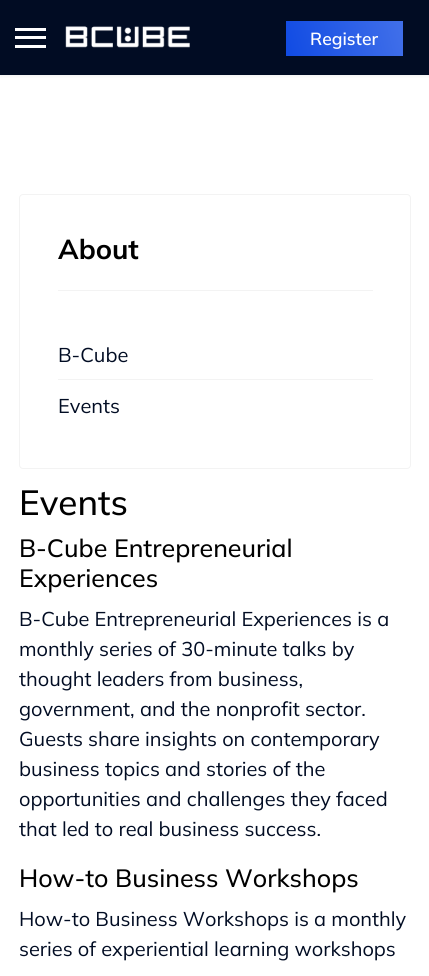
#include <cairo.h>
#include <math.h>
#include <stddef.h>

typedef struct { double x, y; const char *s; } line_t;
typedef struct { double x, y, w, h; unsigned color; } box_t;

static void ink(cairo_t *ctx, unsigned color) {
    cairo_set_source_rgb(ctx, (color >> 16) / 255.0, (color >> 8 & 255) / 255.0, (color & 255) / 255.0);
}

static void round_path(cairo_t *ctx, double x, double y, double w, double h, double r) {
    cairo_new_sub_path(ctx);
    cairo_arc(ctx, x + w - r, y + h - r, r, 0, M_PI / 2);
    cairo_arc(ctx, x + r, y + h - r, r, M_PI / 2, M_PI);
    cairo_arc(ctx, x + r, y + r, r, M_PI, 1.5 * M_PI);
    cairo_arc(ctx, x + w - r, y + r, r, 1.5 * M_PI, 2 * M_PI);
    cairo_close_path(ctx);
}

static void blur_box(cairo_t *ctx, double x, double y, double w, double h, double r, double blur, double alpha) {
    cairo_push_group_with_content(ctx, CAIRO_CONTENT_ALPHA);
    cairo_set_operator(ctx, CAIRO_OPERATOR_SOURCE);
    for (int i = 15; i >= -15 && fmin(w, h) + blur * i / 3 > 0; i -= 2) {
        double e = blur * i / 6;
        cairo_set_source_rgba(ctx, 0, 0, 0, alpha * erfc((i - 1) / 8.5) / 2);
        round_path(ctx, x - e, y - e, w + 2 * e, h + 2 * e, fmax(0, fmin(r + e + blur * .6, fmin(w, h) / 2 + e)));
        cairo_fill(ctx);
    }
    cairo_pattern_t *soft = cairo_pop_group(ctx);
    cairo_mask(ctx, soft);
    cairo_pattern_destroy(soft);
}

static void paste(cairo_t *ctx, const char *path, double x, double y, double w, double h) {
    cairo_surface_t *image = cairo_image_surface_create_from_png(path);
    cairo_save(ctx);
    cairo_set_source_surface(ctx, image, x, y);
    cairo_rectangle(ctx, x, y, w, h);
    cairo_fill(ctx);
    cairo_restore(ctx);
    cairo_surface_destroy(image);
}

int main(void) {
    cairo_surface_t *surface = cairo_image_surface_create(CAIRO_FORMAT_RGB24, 429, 976);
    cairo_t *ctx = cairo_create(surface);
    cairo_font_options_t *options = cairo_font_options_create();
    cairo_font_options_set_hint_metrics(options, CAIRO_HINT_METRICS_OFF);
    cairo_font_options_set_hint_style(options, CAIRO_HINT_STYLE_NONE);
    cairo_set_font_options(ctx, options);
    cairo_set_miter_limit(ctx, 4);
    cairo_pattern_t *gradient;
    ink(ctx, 0xFFFFFF);
    cairo_paint(ctx);
    ink(ctx, 0x000000);
    blur_box(ctx, 0, 0, 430, 75, 0, 2.5, 0.1);
    {
        static const box_t items[] = {
            {0, 0, 429, 75, 0x010C23},
            {15, 28, 31, 3, 0xFFFFFF},
            {15, 36, 31, 3, 0xFFFFFF},
            {15, 45, 31, 3, 0xFFFFFF},
        };
        for (size_t i = 0; i < sizeof items / sizeof *items; i++) {
            ink(ctx, items[i].color);
            cairo_rectangle(ctx, items[i].x, items[i].y, items[i].w, items[i].h);
            cairo_fill(ctx);
        }
    }
    paste(ctx, "media/1.png", 65, 26, 125, 22);
    gradient = cairo_pattern_create_linear(403, 24, 282, 55);
    cairo_pattern_add_color_stop_rgba(gradient, 0.04, 0.247, 0.431, 0.914, 1);
    cairo_pattern_add_color_stop_rgba(gradient, 1, 0.059, 0.29, 0.89, 1);
    cairo_set_source(ctx, gradient);
    cairo_pattern_destroy(gradient);
    cairo_rectangle(ctx, 286, 21, 117, 35);
    cairo_fill(ctx);
    cairo_select_font_face(ctx, "Mulish SemiBold", CAIRO_FONT_SLANT_NORMAL, CAIRO_FONT_WEIGHT_NORMAL);
    cairo_set_font_size(ctx, 17.5);
    ink(ctx, 0xFFFFFF);
    cairo_move_to(ctx, 310, 45);
    cairo_show_text(ctx, "Register");
    round_path(ctx, 19.5, 194.5, 391, 274, 3.5);
    ink(ctx, 0xF3F3F3);
    cairo_set_line_width(ctx, 1);
    cairo_stroke(ctx);
    cairo_rectangle(ctx, 58, 290, 315, 1);
    cairo_fill(ctx);
    cairo_select_font_face(ctx, "Mulish", CAIRO_FONT_SLANT_NORMAL, CAIRO_FONT_WEIGHT_BOLD);
    cairo_set_font_size(ctx, 27.5);
    ink(ctx, 0x000000);
    cairo_move_to(ctx, 58, 259);
    cairo_show_text(ctx, "About");
    ink(ctx, 0xF3F3F3);
    cairo_rectangle(ctx, 58, 379, 315, 1);
    cairo_fill(ctx);
    cairo_select_font_face(ctx, "Mulish", CAIRO_FONT_SLANT_NORMAL, CAIRO_FONT_WEIGHT_NORMAL);
    cairo_set_font_size(ctx, 20);
    ink(ctx, 0x010C23);
    cairo_move_to(ctx, 58, 362);
    cairo_show_text(ctx, "B-Cube");
    cairo_move_to(ctx, 58, 413);
    cairo_show_text(ctx, "Events");
    cairo_select_font_face(ctx, "Mulish Medium", CAIRO_FONT_SLANT_NORMAL, CAIRO_FONT_WEIGHT_NORMAL);
    cairo_set_font_size(ctx, 35);
    ink(ctx, 0x000000);
    cairo_move_to(ctx, 19, 515);
    cairo_show_text(ctx, "Events");
    cairo_set_font_size(ctx, 25);
    cairo_move_to(ctx, 19, 557);
    cairo_show_text(ctx, "B-Cube Entrepreneurial");
    cairo_move_to(ctx, 19, 587);
    cairo_show_text(ctx, "Experiences");
    cairo_select_font_face(ctx, "Mulish", CAIRO_FONT_SLANT_NORMAL, CAIRO_FONT_WEIGHT_NORMAL);
    cairo_set_font_size(ctx, 20);
    ink(ctx, 0x010C23);
    {
        static const line_t items[] = {
            {19, 626, "B-Cube Entrepreneurial Experiences is a"},
            {19, 656, "monthly series of 30-minute talks by"},
            {19, 686, "thought leaders from business,"},
            {19, 716, "government, and the nonprofit sector."},
            {19, 746, "Guests share insights on contemporary"},
            {19, 776, "business topics and stories of the"},
            {19, 806, "opportunities and challenges they faced"},
            {19, 836, "that led to real business success."},
        };
        for (size_t i = 0; i < sizeof items / sizeof *items; i++) {
            cairo_move_to(ctx, items[i].x, items[i].y);
            cairo_show_text(ctx, items[i].s);
        }
    }
    cairo_select_font_face(ctx, "Mulish Medium", CAIRO_FONT_SLANT_NORMAL, CAIRO_FONT_WEIGHT_NORMAL);
    cairo_set_font_size(ctx, 25);
    ink(ctx, 0x000000);
    cairo_move_to(ctx, 19, 887);
    cairo_show_text(ctx, "How-to Business Workshops");
    cairo_select_font_face(ctx, "Mulish", CAIRO_FONT_SLANT_NORMAL, CAIRO_FONT_WEIGHT_NORMAL);
    cairo_set_font_size(ctx, 20);
    ink(ctx, 0x010C23);
    cairo_move_to(ctx, 19, 926);
    cairo_show_text(ctx, "How-to Business Workshops is a monthly");
    cairo_move_to(ctx, 19, 956);
    cairo_show_text(ctx, "series of experiential learning workshops");
    cairo_surface_write_to_png(surface, "image.png");
    cairo_font_options_destroy(options);
    cairo_destroy(ctx);
    cairo_surface_destroy(surface);
    return 0;
}
